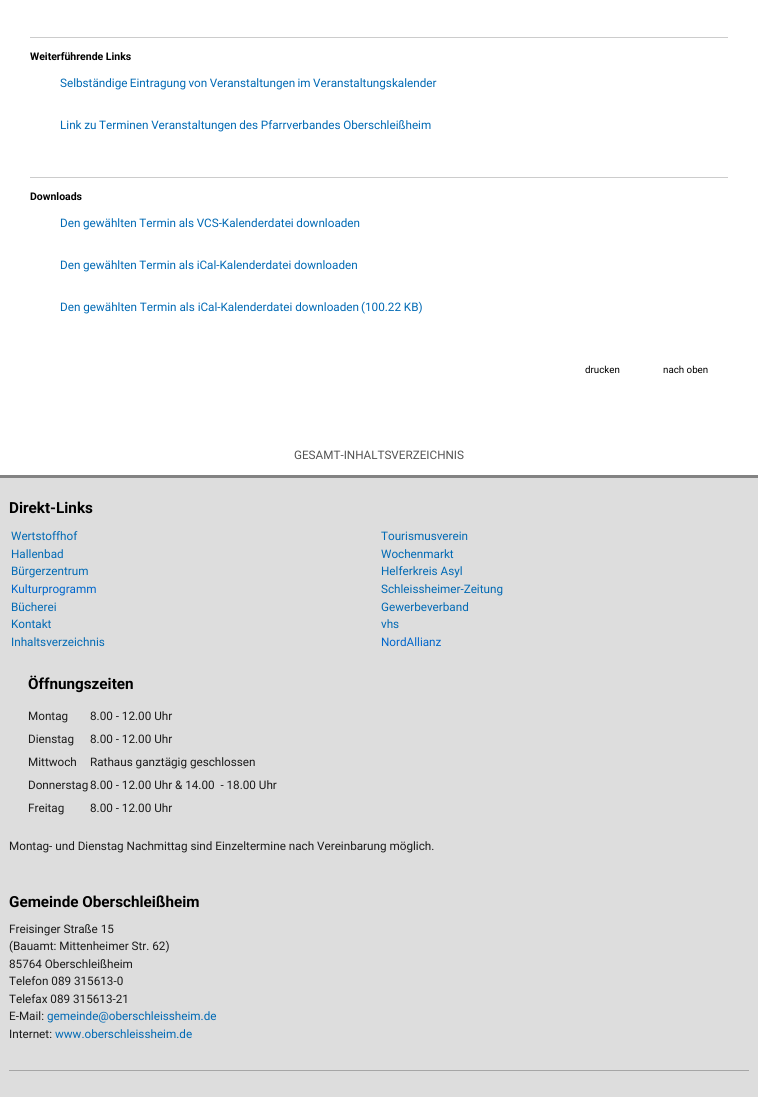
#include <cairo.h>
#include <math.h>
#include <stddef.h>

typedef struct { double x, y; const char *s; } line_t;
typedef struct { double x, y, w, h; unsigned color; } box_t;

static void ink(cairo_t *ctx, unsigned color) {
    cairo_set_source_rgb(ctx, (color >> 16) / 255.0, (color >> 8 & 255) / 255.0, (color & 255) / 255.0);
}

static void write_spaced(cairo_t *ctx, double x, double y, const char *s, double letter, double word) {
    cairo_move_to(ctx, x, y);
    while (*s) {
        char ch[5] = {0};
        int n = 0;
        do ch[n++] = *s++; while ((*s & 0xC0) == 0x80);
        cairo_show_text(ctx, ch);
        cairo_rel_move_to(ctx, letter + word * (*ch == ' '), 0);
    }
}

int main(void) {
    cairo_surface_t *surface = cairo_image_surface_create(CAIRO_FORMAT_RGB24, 758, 1097);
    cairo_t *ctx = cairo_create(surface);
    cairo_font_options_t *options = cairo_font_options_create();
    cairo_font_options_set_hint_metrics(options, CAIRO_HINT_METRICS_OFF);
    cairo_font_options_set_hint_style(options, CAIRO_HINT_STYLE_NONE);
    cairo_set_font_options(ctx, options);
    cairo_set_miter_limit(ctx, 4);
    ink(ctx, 0xFFFFFF);
    cairo_paint(ctx);
    ink(ctx, 0xCCCCCC);
    cairo_rectangle(ctx, 30, 37, 698, 1);
    cairo_fill(ctx);
    cairo_select_font_face(ctx, "Roboto", CAIRO_FONT_SLANT_NORMAL, CAIRO_FONT_WEIGHT_BOLD);
    cairo_set_font_size(ctx, 10.5);
    ink(ctx, 0x000000);
    cairo_move_to(ctx, 30, 60);
    cairo_show_text(ctx, "Weiterführende Links");
    cairo_select_font_face(ctx, "Roboto", CAIRO_FONT_SLANT_NORMAL, CAIRO_FONT_WEIGHT_NORMAL);
    cairo_set_font_size(ctx, 11.7);
    ink(ctx, 0x0069B4);
    write_spaced(ctx, 60, 87, "Selbständige Eintragung von Veranstaltungen im Veranstaltungskalender", 0, -0.5);
    write_spaced(ctx, 60, 129, "Link zu Terminen Veranstaltungen des Pfarrverbandes Oberschleißheim", 0, -0.25);
    ink(ctx, 0xCCCCCC);
    cairo_rectangle(ctx, 30, 177, 698, 1);
    cairo_fill(ctx);
    cairo_select_font_face(ctx, "Roboto", CAIRO_FONT_SLANT_NORMAL, CAIRO_FONT_WEIGHT_BOLD);
    cairo_set_font_size(ctx, 10.5);
    ink(ctx, 0x000000);
    cairo_move_to(ctx, 30, 200);
    cairo_show_text(ctx, "Downloads");
    cairo_select_font_face(ctx, "Roboto", CAIRO_FONT_SLANT_NORMAL, CAIRO_FONT_WEIGHT_NORMAL);
    cairo_set_font_size(ctx, 11.7);
    ink(ctx, 0x0069B4);
    write_spaced(ctx, 60, 227, "Den gewählten Termin als VCS-Kalenderdatei downloaden", 0, -0.25);
    write_spaced(ctx, 60, 269, "Den gewählten Termin als iCal-Kalenderdatei downloaden", 0, -0.25);
    cairo_move_to(ctx, 60, 311);
    cairo_show_text(ctx, "Den gewählten Termin als iCal-Kalenderdatei downloaden");
    cairo_move_to(ctx, 361, 311);
    cairo_show_text(ctx, "(100.22 KB)");
    cairo_set_font_size(ctx, 9.75);
    ink(ctx, 0x000000);
    cairo_move_to(ctx, 585, 373);
    cairo_show_text(ctx, "drucken");
    cairo_move_to(ctx, 663, 373);
    cairo_show_text(ctx, "nach oben");
    cairo_set_font_size(ctx, 11.7);
    ink(ctx, 0x535353);
    cairo_move_to(ctx, 294, 459);
    cairo_show_text(ctx, "GESAMT-INHALTSVERZEICHNIS");
    {
        static const box_t items[] = {
            {0, 478, 758, 619, 0xDDDDDD},
            {0, 475, 758, 3, 0x838383},
            {9, 1070, 740, 1, 0xA6A6A6},
        };
        for (size_t i = 0; i < sizeof items / sizeof *items; i++) {
            ink(ctx, items[i].color);
            cairo_rectangle(ctx, items[i].x, items[i].y, items[i].w, items[i].h);
            cairo_fill(ctx);
        }
    }
    cairo_select_font_face(ctx, "Roboto", CAIRO_FONT_SLANT_NORMAL, CAIRO_FONT_WEIGHT_BOLD);
    cairo_set_font_size(ctx, 15.25);
    ink(ctx, 0x000000);
    cairo_move_to(ctx, 9, 513);
    cairo_show_text(ctx, "Direkt-Links");
    cairo_select_font_face(ctx, "Roboto", CAIRO_FONT_SLANT_NORMAL, CAIRO_FONT_WEIGHT_NORMAL);
    cairo_set_font_size(ctx, 11.7);
    ink(ctx, 0x0069B4);
    {
        static const line_t items[] = {
            {11, 540, "Wertstoffhof"},
            {11, 558, "Hallenbad"},
            {11, 575, "Bürgerzentrum"},
        };
        for (size_t i = 0; i < sizeof items / sizeof *items; i++) {
            cairo_move_to(ctx, items[i].x, items[i].y);
            cairo_show_text(ctx, items[i].s);
        }
    }
    ink(ctx, 0x0066CC);
    cairo_move_to(ctx, 11, 593);
    cairo_show_text(ctx, "Kulturprogramm");
    ink(ctx, 0x0069B4);
    {
        static const line_t items[] = {
            {11, 611, "Bücherei"},
            {11, 628, "Kontakt"},
            {11, 646, "Inhaltsverzeichnis"},
            {381, 540, "Tourismusverein"},
            {381, 558, "Wochenmarkt"},
            {381, 575, "Helferkreis Asyl"},
            {381, 593, "Schleissheimer-Zeitung"},
            {381, 611, "Gewerbeverband"},
            {381, 628, "vhs"},
        };
        for (size_t i = 0; i < sizeof items / sizeof *items; i++) {
            cairo_move_to(ctx, items[i].x, items[i].y);
            cairo_show_text(ctx, items[i].s);
        }
    }
    ink(ctx, 0x0066CC);
    cairo_move_to(ctx, 381, 646);
    cairo_show_text(ctx, "NordAllianz");
    cairo_select_font_face(ctx, "Roboto", CAIRO_FONT_SLANT_NORMAL, CAIRO_FONT_WEIGHT_BOLD);
    cairo_set_font_size(ctx, 15.25);
    ink(ctx, 0x000000);
    cairo_move_to(ctx, 28, 689);
    cairo_show_text(ctx, "Öffnungszeiten");
    cairo_select_font_face(ctx, "Roboto", CAIRO_FONT_SLANT_NORMAL, CAIRO_FONT_WEIGHT_NORMAL);
    cairo_set_font_size(ctx, 11.7);
    ink(ctx, 0x1A1A1A);
    {
        static const line_t items[] = {
            {28, 720, "Montag"},
            {90, 720, "8.00 - 12.00 Uhr"},
            {28, 743, "Dienstag"},
            {90, 743, "8.00 - 12.00 Uhr"},
            {28, 766, "Mittwoch"},
            {90, 766, "Rathaus ganztägig geschlossen"},
            {28, 789, "Donnerstag"},
            {90, 789, "8.00 - 12.00 Uhr & 14.00  - 18.00 Uhr"},
            {28, 812, "Freitag"},
            {90, 812, "8.00 - 12.00 Uhr"},
            {9, 850, "Montag- und Dienstag Nachmittag sind Einzeltermine nach Vereinbarung möglich."},
        };
        for (size_t i = 0; i < sizeof items / sizeof *items; i++) {
            cairo_move_to(ctx, items[i].x, items[i].y);
            cairo_show_text(ctx, items[i].s);
        }
    }
    cairo_select_font_face(ctx, "Roboto", CAIRO_FONT_SLANT_NORMAL, CAIRO_FONT_WEIGHT_BOLD);
    cairo_set_font_size(ctx, 15.25);
    ink(ctx, 0x000000);
    cairo_move_to(ctx, 9, 907);
    cairo_show_text(ctx, "Gemeinde Oberschleißheim");
    cairo_select_font_face(ctx, "Roboto", CAIRO_FONT_SLANT_NORMAL, CAIRO_FONT_WEIGHT_NORMAL);
    cairo_set_font_size(ctx, 11.7);
    ink(ctx, 0x1A1A1A);
    {
        static const line_t items[] = {
            {9, 933, "Freisinger Straße 15"},
            {9, 950, "(Bauamt: Mittenheimer Str. 62)"},
            {9, 968, "85764 Oberschleißheim"},
            {9, 985, "Telefon 089 315613-0"},
            {9, 1003, "Telefax 089 315613-21"},
            {9, 1020, "E-Mail:"},
        };
        for (size_t i = 0; i < sizeof items / sizeof *items; i++) {
            cairo_move_to(ctx, items[i].x, items[i].y);
            cairo_show_text(ctx, items[i].s);
        }
    }
    ink(ctx, 0x0069B4);
    cairo_move_to(ctx, 47, 1020);
    cairo_show_text(ctx, "gemeinde@oberschleissheim.de");
    ink(ctx, 0x1A1A1A);
    cairo_move_to(ctx, 9, 1038);
    cairo_show_text(ctx, "Internet:");
    ink(ctx, 0x0069B4);
    cairo_move_to(ctx, 55, 1038);
    cairo_show_text(ctx, "www.oberschleissheim.de");
    cairo_surface_write_to_png(surface, "image.png");
    cairo_font_options_destroy(options);
    cairo_destroy(ctx);
    cairo_surface_destroy(surface);
    return 0;
}
